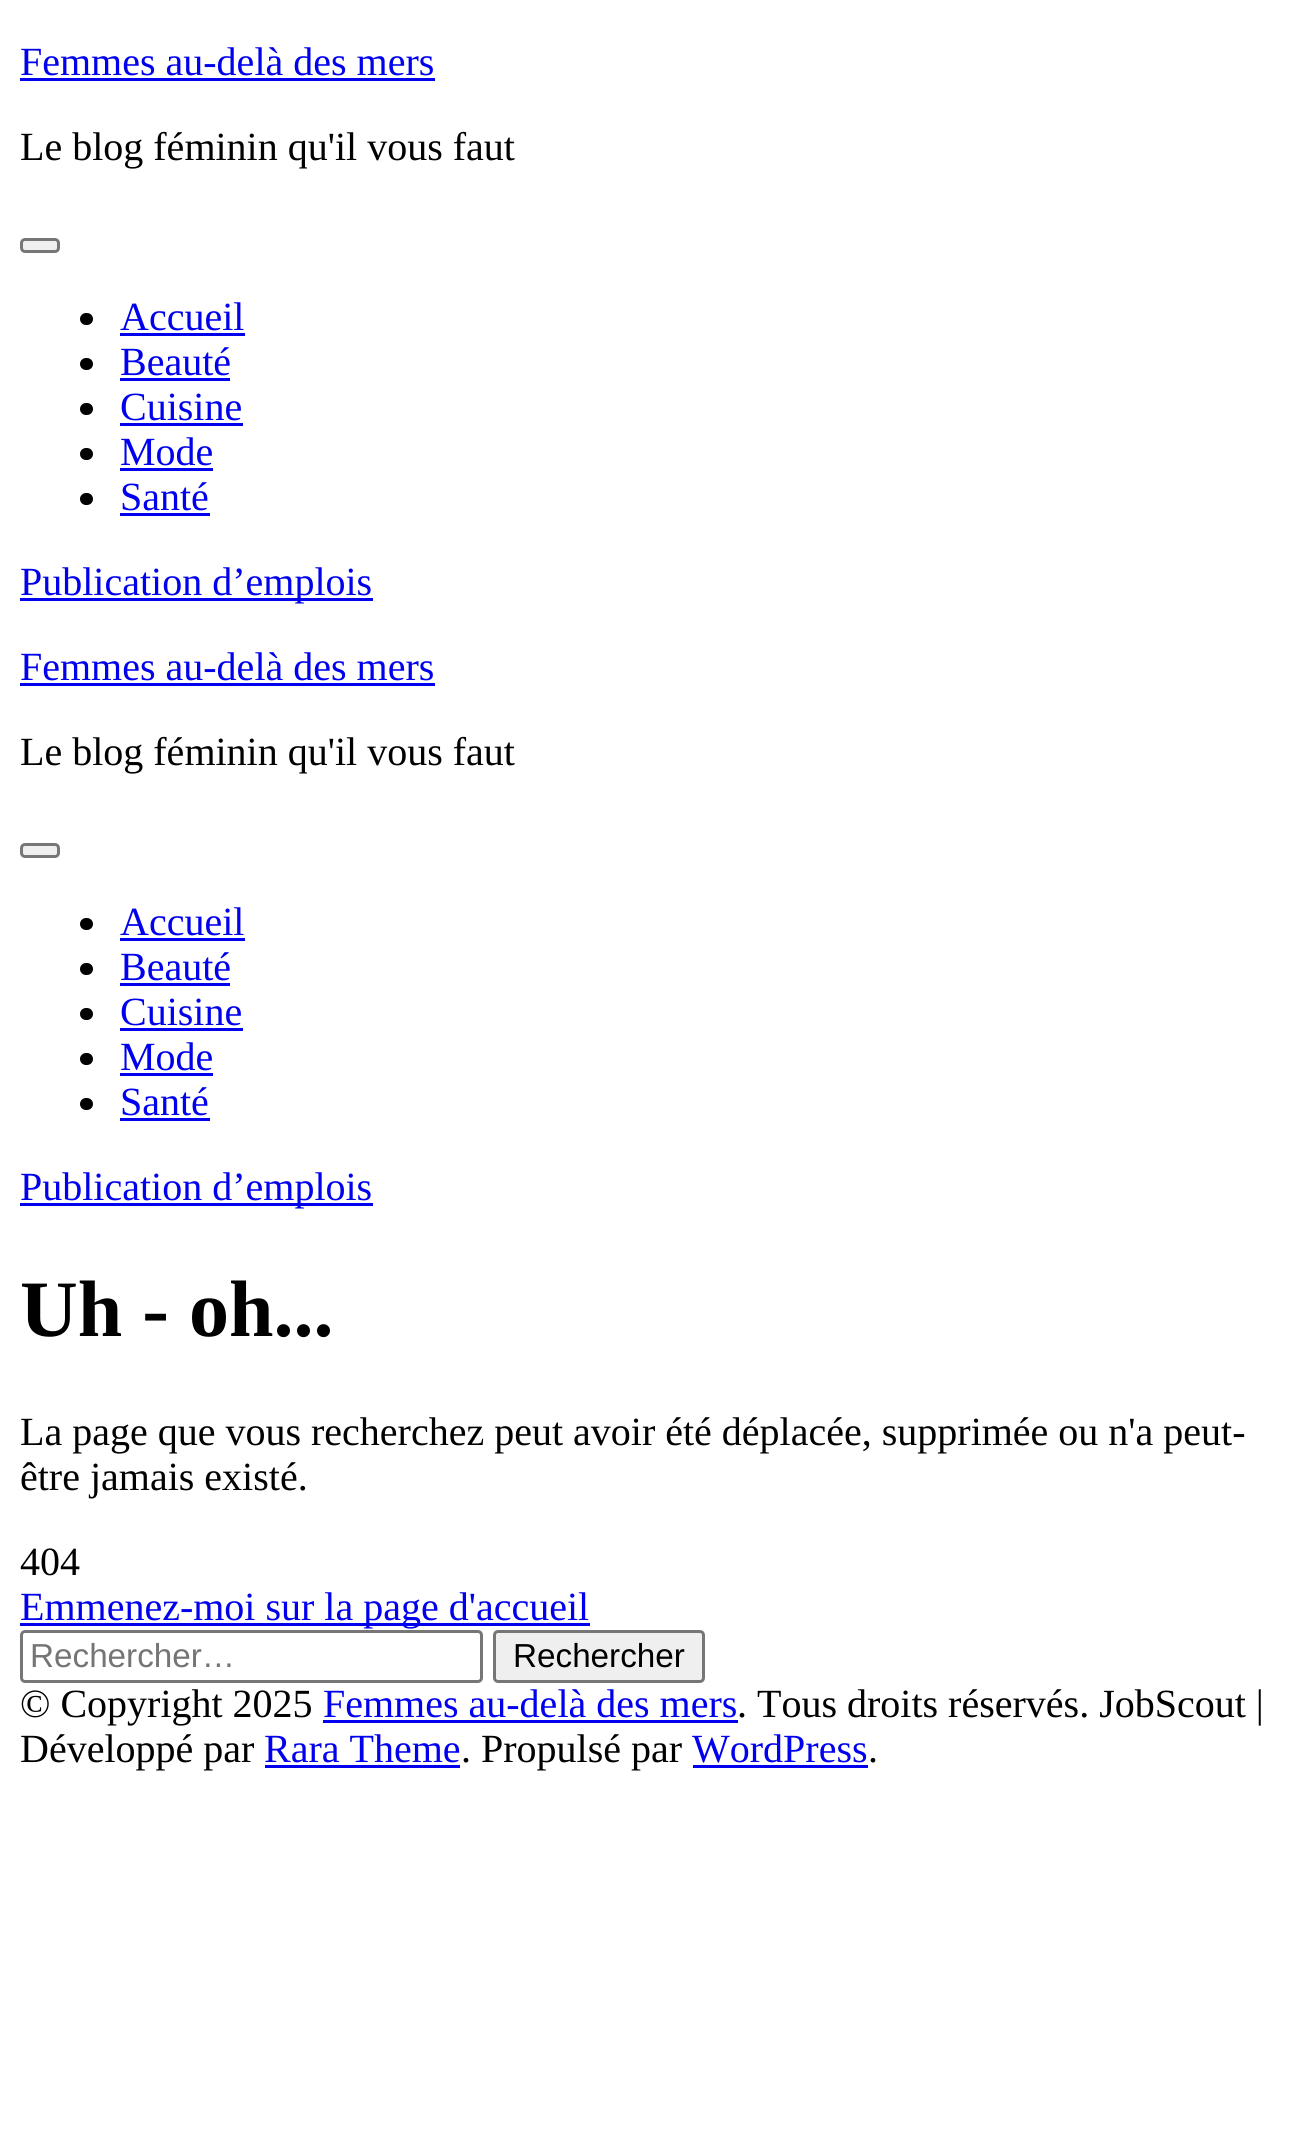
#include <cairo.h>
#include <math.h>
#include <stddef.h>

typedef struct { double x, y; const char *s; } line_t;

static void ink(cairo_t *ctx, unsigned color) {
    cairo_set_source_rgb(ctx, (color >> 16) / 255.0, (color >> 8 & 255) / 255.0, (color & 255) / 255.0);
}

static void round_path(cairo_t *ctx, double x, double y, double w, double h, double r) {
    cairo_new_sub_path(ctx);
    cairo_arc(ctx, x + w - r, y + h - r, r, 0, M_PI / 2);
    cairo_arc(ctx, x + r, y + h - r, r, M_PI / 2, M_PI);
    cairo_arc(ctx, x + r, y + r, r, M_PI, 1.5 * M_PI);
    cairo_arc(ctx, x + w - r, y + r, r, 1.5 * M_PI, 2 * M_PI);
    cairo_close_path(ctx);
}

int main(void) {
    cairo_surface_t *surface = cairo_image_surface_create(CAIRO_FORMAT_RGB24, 1294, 2154);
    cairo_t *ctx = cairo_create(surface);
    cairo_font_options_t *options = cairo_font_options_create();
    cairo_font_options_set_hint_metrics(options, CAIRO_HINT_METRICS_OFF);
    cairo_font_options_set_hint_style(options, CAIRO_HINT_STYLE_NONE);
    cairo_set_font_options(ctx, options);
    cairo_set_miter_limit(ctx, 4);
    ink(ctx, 0xFFFFFF);
    cairo_paint(ctx);
    cairo_select_font_face(ctx, "Liberation Serif", CAIRO_FONT_SLANT_NORMAL, CAIRO_FONT_WEIGHT_NORMAL);
    cairo_set_font_size(ctx, 40);
    ink(ctx, 0x0000EE);
    cairo_move_to(ctx, 20, 75);
    cairo_show_text(ctx, "Femmes au-delà des mers");
    cairo_rectangle(ctx, 20, 78, 415, 3);
    cairo_fill(ctx);
    ink(ctx, 0x000000);
    cairo_move_to(ctx, 20, 160);
    cairo_show_text(ctx, "Le blog féminin qu'il vous faut");
    ink(ctx, 0xEFEFEF);
    round_path(ctx, 21.5, 239.5, 37, 12, 3.5);
    cairo_fill_preserve(ctx);
    ink(ctx, 0x767676);
    cairo_set_line_width(ctx, 3);
    cairo_stroke(ctx);
    ink(ctx, 0x000000);
    round_path(ctx, 80, 313, 13, 12, 6);
    cairo_fill(ctx);
    ink(ctx, 0x0000EE);
    cairo_move_to(ctx, 120, 330);
    cairo_show_text(ctx, "Accueil");
    cairo_rectangle(ctx, 120, 333, 125, 3);
    cairo_fill(ctx);
    ink(ctx, 0x000000);
    round_path(ctx, 80, 358, 13, 12, 6);
    cairo_fill(ctx);
    ink(ctx, 0x0000EE);
    cairo_move_to(ctx, 120, 375);
    cairo_show_text(ctx, "Beauté");
    cairo_rectangle(ctx, 120, 378, 110, 3);
    cairo_fill(ctx);
    ink(ctx, 0x000000);
    round_path(ctx, 80, 403, 13, 12, 6);
    cairo_fill(ctx);
    ink(ctx, 0x0000EE);
    cairo_move_to(ctx, 120, 420);
    cairo_show_text(ctx, "Cuisine");
    cairo_rectangle(ctx, 120, 423, 123, 3);
    cairo_fill(ctx);
    ink(ctx, 0x000000);
    round_path(ctx, 80, 448, 13, 12, 6);
    cairo_fill(ctx);
    ink(ctx, 0x0000EE);
    cairo_move_to(ctx, 120, 465);
    cairo_show_text(ctx, "Mode");
    cairo_rectangle(ctx, 120, 468, 93, 3);
    cairo_fill(ctx);
    ink(ctx, 0x000000);
    round_path(ctx, 80, 493, 13, 12, 6);
    cairo_fill(ctx);
    ink(ctx, 0x0000EE);
    cairo_move_to(ctx, 120, 510);
    cairo_show_text(ctx, "Santé");
    cairo_rectangle(ctx, 120, 513, 90, 3);
    cairo_fill(ctx);
    cairo_rectangle(ctx, 20, 598, 353, 3);
    cairo_fill(ctx);
    cairo_move_to(ctx, 20, 595);
    cairo_show_text(ctx, "Publication d’emplois");
    cairo_move_to(ctx, 20, 680);
    cairo_show_text(ctx, "Femmes au-delà des mers");
    cairo_rectangle(ctx, 20, 683, 415, 3);
    cairo_fill(ctx);
    ink(ctx, 0x000000);
    cairo_move_to(ctx, 20, 765);
    cairo_show_text(ctx, "Le blog féminin qu'il vous faut");
    ink(ctx, 0xEFEFEF);
    round_path(ctx, 21.5, 844.5, 37, 12, 3.5);
    cairo_fill_preserve(ctx);
    ink(ctx, 0x767676);
    cairo_stroke(ctx);
    ink(ctx, 0x000000);
    round_path(ctx, 80, 918, 13, 12, 6);
    cairo_fill(ctx);
    ink(ctx, 0x0000EE);
    cairo_move_to(ctx, 120, 935);
    cairo_show_text(ctx, "Accueil");
    cairo_rectangle(ctx, 120, 938, 125, 3);
    cairo_fill(ctx);
    ink(ctx, 0x000000);
    round_path(ctx, 80, 963, 13, 12, 6);
    cairo_fill(ctx);
    ink(ctx, 0x0000EE);
    cairo_move_to(ctx, 120, 980);
    cairo_show_text(ctx, "Beauté");
    cairo_rectangle(ctx, 120, 983, 110, 3);
    cairo_fill(ctx);
    ink(ctx, 0x000000);
    round_path(ctx, 80, 1008, 13, 12, 6);
    cairo_fill(ctx);
    ink(ctx, 0x0000EE);
    cairo_move_to(ctx, 120, 1025);
    cairo_show_text(ctx, "Cuisine");
    cairo_rectangle(ctx, 120, 1028, 123, 3);
    cairo_fill(ctx);
    ink(ctx, 0x000000);
    round_path(ctx, 80, 1053, 13, 12, 6);
    cairo_fill(ctx);
    ink(ctx, 0x0000EE);
    cairo_move_to(ctx, 120, 1070);
    cairo_show_text(ctx, "Mode");
    cairo_rectangle(ctx, 120, 1073, 93, 3);
    cairo_fill(ctx);
    ink(ctx, 0x000000);
    round_path(ctx, 80, 1098, 13, 12, 6);
    cairo_fill(ctx);
    ink(ctx, 0x0000EE);
    cairo_move_to(ctx, 120, 1115);
    cairo_show_text(ctx, "Santé");
    cairo_rectangle(ctx, 120, 1118, 90, 3);
    cairo_fill(ctx);
    cairo_rectangle(ctx, 20, 1203, 353, 3);
    cairo_fill(ctx);
    cairo_move_to(ctx, 20, 1200);
    cairo_show_text(ctx, "Publication d’emplois");
    cairo_select_font_face(ctx, "Liberation Serif", CAIRO_FONT_SLANT_NORMAL, CAIRO_FONT_WEIGHT_BOLD);
    cairo_set_font_size(ctx, 80);
    ink(ctx, 0x000000);
    cairo_move_to(ctx, 20, 1336);
    cairo_show_text(ctx, "Uh - oh...");
    cairo_select_font_face(ctx, "Liberation Serif", CAIRO_FONT_SLANT_NORMAL, CAIRO_FONT_WEIGHT_NORMAL);
    cairo_set_font_size(ctx, 40);
    {
        static const line_t items[] = {
            {20, 1445, "La page que vous recherchez peut avoir été déplacée, supprimée ou n'a peut-"},
            {20, 1490, "être jamais existé."},
            {20, 1575, "404"},
        };
        for (size_t i = 0; i < sizeof items / sizeof *items; i++) {
            cairo_move_to(ctx, items[i].x, items[i].y);
            cairo_show_text(ctx, items[i].s);
        }
    }
    ink(ctx, 0x0000EE);
    cairo_rectangle(ctx, 20, 1623, 570, 3);
    cairo_fill(ctx);
    cairo_move_to(ctx, 20, 1620);
    cairo_show_text(ctx, "Emmenez-moi sur la page d'accueil");
    round_path(ctx, 21.5, 1631.5, 460, 50, 3.5);
    ink(ctx, 0x767676);
    cairo_stroke(ctx);
    cairo_select_font_face(ctx, "Liberation Sans", CAIRO_FONT_SLANT_NORMAL, CAIRO_FONT_WEIGHT_NORMAL);
    cairo_set_font_size(ctx, 33.25);
    ink(ctx, 0x757575);
    cairo_move_to(ctx, 30, 1667);
    cairo_show_text(ctx, "Rechercher…");
    ink(ctx, 0xEFEFEF);
    round_path(ctx, 494.5, 1631.5, 209, 50, 3.5);
    cairo_fill_preserve(ctx);
    ink(ctx, 0x767676);
    cairo_stroke(ctx);
    ink(ctx, 0x000000);
    cairo_move_to(ctx, 513, 1667);
    cairo_show_text(ctx, "Rechercher");
    cairo_select_font_face(ctx, "Liberation Serif", CAIRO_FONT_SLANT_NORMAL, CAIRO_FONT_WEIGHT_NORMAL);
    cairo_set_font_size(ctx, 40);
    cairo_move_to(ctx, 20, 1717);
    cairo_show_text(ctx, "© Copyright 2025");
    ink(ctx, 0x0000EE);
    cairo_move_to(ctx, 323, 1717);
    cairo_show_text(ctx, "Femmes au-delà des mers");
    ink(ctx, 0x000000);
    cairo_move_to(ctx, 737, 1717);
    cairo_show_text(ctx, ". Tous droits réservés. JobScout |");
    ink(ctx, 0x0000EE);
    cairo_rectangle(ctx, 323, 1720, 415, 3);
    cairo_fill(ctx);
    ink(ctx, 0x000000);
    cairo_move_to(ctx, 20, 1762);
    cairo_show_text(ctx, "Développé par");
    ink(ctx, 0x0000EE);
    cairo_move_to(ctx, 264, 1762);
    cairo_show_text(ctx, "Rara Theme");
    cairo_rectangle(ctx, 265, 1765, 195, 3);
    cairo_fill(ctx);
    ink(ctx, 0x000000);
    cairo_move_to(ctx, 461, 1762);
    cairo_show_text(ctx, ". Propulsé par");
    ink(ctx, 0x0000EE);
    cairo_move_to(ctx, 692, 1762);
    cairo_show_text(ctx, "WordPress");
    cairo_rectangle(ctx, 693, 1765, 175, 3);
    cairo_fill(ctx);
    ink(ctx, 0x000000);
    cairo_move_to(ctx, 868, 1762);
    cairo_show_text(ctx, ".");
    cairo_surface_write_to_png(surface, "image.png");
    cairo_font_options_destroy(options);
    cairo_destroy(ctx);
    cairo_surface_destroy(surface);
    return 0;
}
